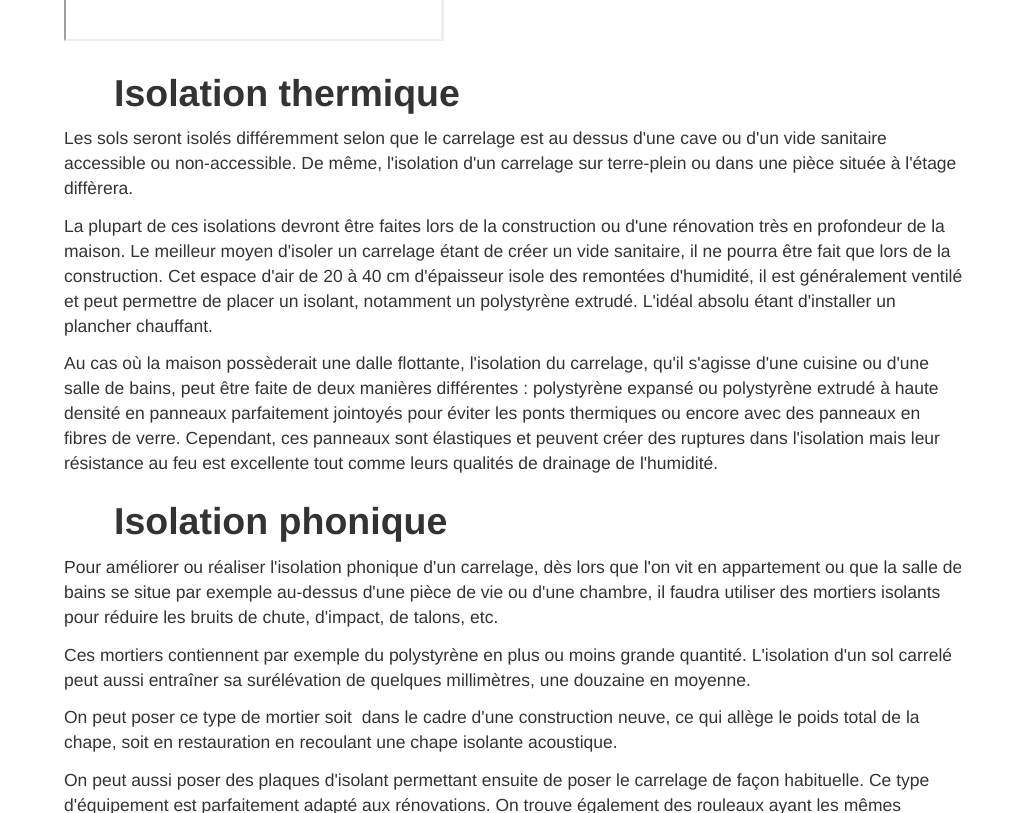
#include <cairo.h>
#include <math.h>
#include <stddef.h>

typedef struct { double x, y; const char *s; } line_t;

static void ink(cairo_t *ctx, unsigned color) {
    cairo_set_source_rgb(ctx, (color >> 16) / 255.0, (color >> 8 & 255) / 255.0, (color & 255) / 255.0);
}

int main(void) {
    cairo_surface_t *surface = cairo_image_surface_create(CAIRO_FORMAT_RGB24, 1027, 813);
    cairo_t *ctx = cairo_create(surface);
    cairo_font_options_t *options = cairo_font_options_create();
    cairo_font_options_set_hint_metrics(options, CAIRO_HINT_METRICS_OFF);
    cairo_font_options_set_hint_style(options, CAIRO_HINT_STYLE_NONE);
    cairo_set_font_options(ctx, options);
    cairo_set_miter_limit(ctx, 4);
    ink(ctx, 0xFFFFFF);
    cairo_paint(ctx);
    ink(ctx, 0xEEEEEE);
    cairo_new_path(ctx);
    cairo_move_to(ctx, 444, -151);
    cairo_line_to(ctx, 444, 41);
    cairo_line_to(ctx, 441, 39);
    cairo_line_to(ctx, 441, -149);
    cairo_close_path(ctx);
    cairo_fill(ctx);
    cairo_new_path(ctx);
    cairo_move_to(ctx, 444, 41);
    cairo_line_to(ctx, 64, 41);
    cairo_line_to(ctx, 66, 39);
    cairo_line_to(ctx, 441, 39);
    cairo_close_path(ctx);
    cairo_fill(ctx);
    ink(ctx, 0x9F9F9F);
    cairo_new_path(ctx);
    cairo_move_to(ctx, 64, 41);
    cairo_line_to(ctx, 64, -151);
    cairo_line_to(ctx, 66, -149);
    cairo_line_to(ctx, 66, 39);
    cairo_close_path(ctx);
    cairo_fill(ctx);
    cairo_select_font_face(ctx, "Liberation Sans", CAIRO_FONT_SLANT_NORMAL, CAIRO_FONT_WEIGHT_BOLD);
    cairo_set_font_size(ctx, 37.5);
    ink(ctx, 0x333333);
    cairo_move_to(ctx, 114, 106);
    cairo_show_text(ctx, "Isolation thermique");
    cairo_select_font_face(ctx, "Liberation Sans", CAIRO_FONT_SLANT_NORMAL, CAIRO_FONT_WEIGHT_NORMAL);
    cairo_set_font_size(ctx, 17.5);
    {
        static const line_t items[] = {
            {64, 144, "Les sols seront isolés différemment selon que le carrelage est au dessus d'une cave ou d'un vide sanitaire"},
            {64, 169, "accessible ou non-accessible. De même, l'isolation d'un carrelage sur terre-plein ou dans une pièce située à l'étage"},
            {64, 194, "diffèrera."},
            {64, 232, "La plupart de ces isolations devront être faites lors de la construction ou d'une rénovation très en profondeur de la"},
            {64, 257, "maison. Le meilleur moyen d'isoler un carrelage étant de créer un vide sanitaire, il ne pourra être fait que lors de la"},
            {64, 282, "construction. Cet espace d'air de 20 à 40 cm d'épaisseur isole des remontées d'humidité, il est généralement ventilé"},
            {64, 307, "et peut permettre de placer un isolant, notamment un polystyrène extrudé. L'idéal absolu étant d'installer un"},
            {64, 332, "plancher chauffant."},
            {64, 369, "Au cas où la maison possèderait une dalle flottante, l'isolation du carrelage, qu'il s'agisse d'une cuisine ou d'une"},
            {64, 394, "salle de bains, peut être faite de deux manières différentes : polystyrène expansé ou polystyrène extrudé à haute"},
            {64, 419, "densité en panneaux parfaitement jointoyés pour éviter les ponts thermiques ou encore avec des panneaux en"},
            {64, 444, "fibres de verre. Cependant, ces panneaux sont élastiques et peuvent créer des ruptures dans l'isolation mais leur"},
            {64, 469, "résistance au feu est excellente tout comme leurs qualités de drainage de l'humidité."},
        };
        for (size_t i = 0; i < sizeof items / sizeof *items; i++) {
            cairo_move_to(ctx, items[i].x, items[i].y);
            cairo_show_text(ctx, items[i].s);
        }
    }
    cairo_select_font_face(ctx, "Liberation Sans", CAIRO_FONT_SLANT_NORMAL, CAIRO_FONT_WEIGHT_BOLD);
    cairo_set_font_size(ctx, 37.5);
    cairo_move_to(ctx, 114, 534);
    cairo_show_text(ctx, "Isolation phonique");
    cairo_select_font_face(ctx, "Liberation Sans", CAIRO_FONT_SLANT_NORMAL, CAIRO_FONT_WEIGHT_NORMAL);
    cairo_set_font_size(ctx, 17.5);
    {
        static const line_t items[] = {
            {64, 573, "Pour améliorer ou réaliser l'isolation phonique d'un carrelage, dès lors que l'on vit en appartement ou que la salle de"},
            {64, 598, "bains se situe par exemple au-dessus d'une pièce de vie ou d'une chambre, il faudra utiliser des mortiers isolants"},
            {64, 623, "pour réduire les bruits de chute, d'impact, de talons, etc."},
            {64, 661, "Ces mortiers contiennent par exemple du polystyrène en plus ou moins grande quantité. L'isolation d'un sol carrelé"},
            {64, 686, "peut aussi entraîner sa surélévation de quelques millimètres, une douzaine en moyenne."},
            {64, 723, "On peut poser ce type de mortier soit  dans le cadre d'une construction neuve, ce qui allège le poids total de la"},
            {64, 748, "chape, soit en restauration en recoulant une chape isolante acoustique."},
            {64, 786, "On peut aussi poser des plaques d'isolant permettant ensuite de poser le carrelage de façon habituelle. Ce type"},
            {64, 811, "d'équipement est parfaitement adapté aux rénovations. On trouve également des rouleaux ayant les mêmes"},
        };
        for (size_t i = 0; i < sizeof items / sizeof *items; i++) {
            cairo_move_to(ctx, items[i].x, items[i].y);
            cairo_show_text(ctx, items[i].s);
        }
    }
    cairo_surface_write_to_png(surface, "image.png");
    cairo_font_options_destroy(options);
    cairo_destroy(ctx);
    cairo_surface_destroy(surface);
    return 0;
}
